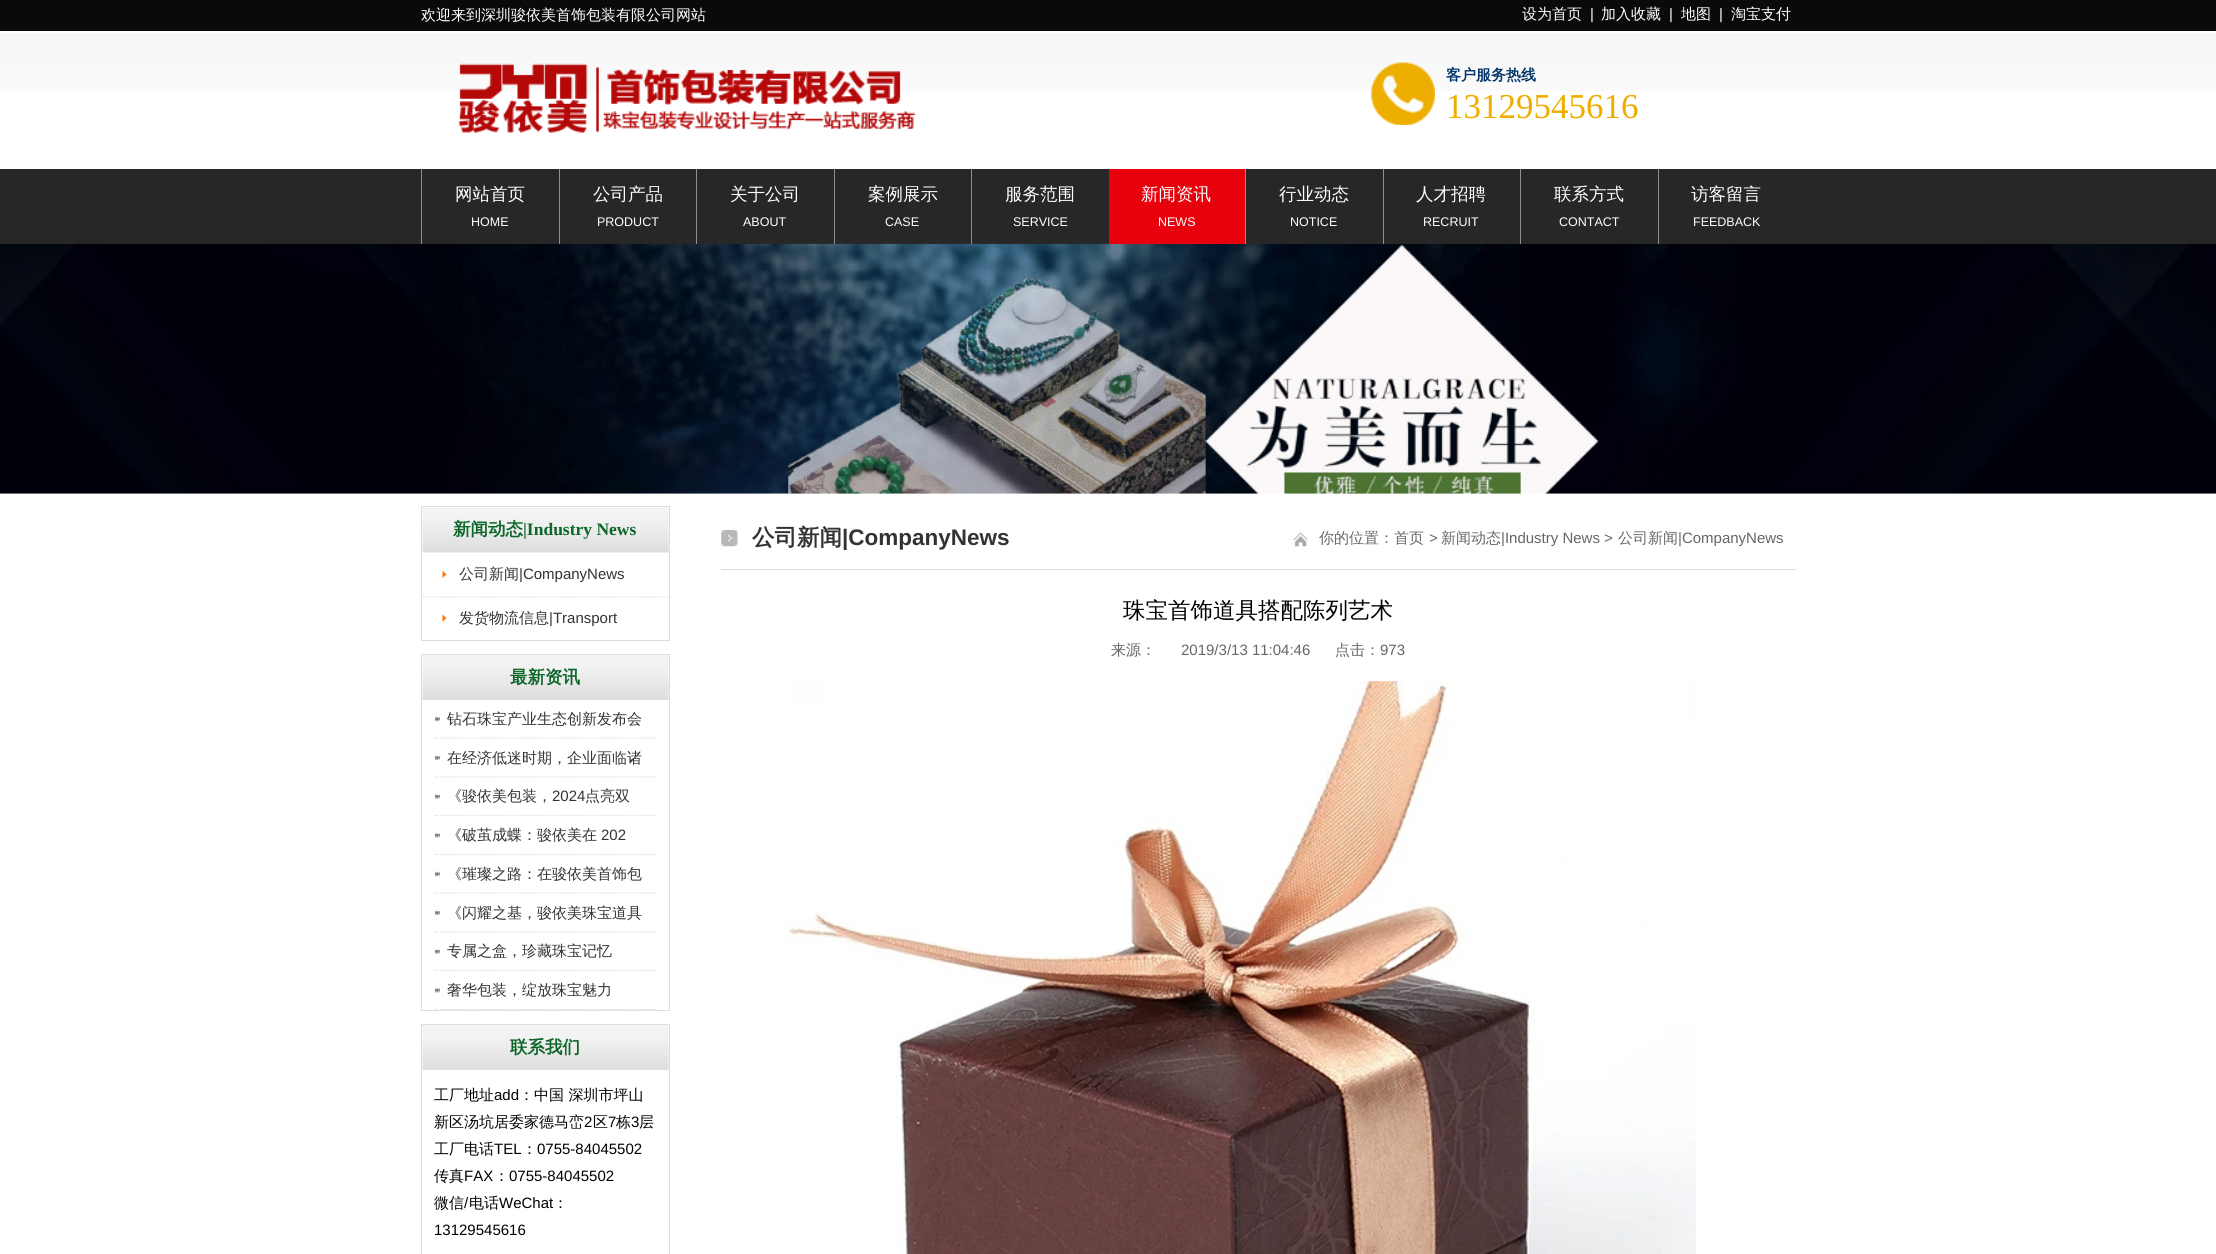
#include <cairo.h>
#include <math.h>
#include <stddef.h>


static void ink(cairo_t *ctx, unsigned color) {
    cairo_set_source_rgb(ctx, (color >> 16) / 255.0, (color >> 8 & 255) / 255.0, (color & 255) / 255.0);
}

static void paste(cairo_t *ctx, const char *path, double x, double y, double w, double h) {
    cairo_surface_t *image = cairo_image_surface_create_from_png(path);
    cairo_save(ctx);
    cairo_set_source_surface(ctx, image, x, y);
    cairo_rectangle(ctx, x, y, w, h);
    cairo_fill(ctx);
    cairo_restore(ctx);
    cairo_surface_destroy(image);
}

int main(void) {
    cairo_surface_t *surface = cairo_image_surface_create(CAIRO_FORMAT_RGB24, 2216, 1254);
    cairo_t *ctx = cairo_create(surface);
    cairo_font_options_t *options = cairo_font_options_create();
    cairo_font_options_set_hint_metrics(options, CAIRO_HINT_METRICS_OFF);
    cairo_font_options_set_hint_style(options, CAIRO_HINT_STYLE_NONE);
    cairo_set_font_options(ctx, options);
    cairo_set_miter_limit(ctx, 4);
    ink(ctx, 0xFFFFFF);
    cairo_paint(ctx);
    ink(ctx, 0x0A0A0A);
    cairo_rectangle(ctx, 0, 0, 2216, 31);
    cairo_fill(ctx);
    cairo_select_font_face(ctx, "WenQuanYi Zen Hei Medium", CAIRO_FONT_SLANT_NORMAL, CAIRO_FONT_WEIGHT_NORMAL);
    cairo_set_font_size(ctx, 15);
    ink(ctx, 0xFFFFFF);
    cairo_move_to(ctx, 421, 20);
    cairo_show_text(ctx, "欢迎来到深圳骏依美首饰包装有限公司网站");
    cairo_move_to(ctx, 1522, 19);
    cairo_show_text(ctx, "设为首页");
    cairo_select_font_face(ctx, "Liberation Sans", CAIRO_FONT_SLANT_NORMAL, CAIRO_FONT_WEIGHT_NORMAL);
    cairo_move_to(ctx, 1590, 19);
    cairo_show_text(ctx, "|");
    cairo_select_font_face(ctx, "WenQuanYi Zen Hei Medium", CAIRO_FONT_SLANT_NORMAL, CAIRO_FONT_WEIGHT_NORMAL);
    cairo_move_to(ctx, 1601, 19);
    cairo_show_text(ctx, "加入收藏");
    cairo_select_font_face(ctx, "Liberation Sans", CAIRO_FONT_SLANT_NORMAL, CAIRO_FONT_WEIGHT_NORMAL);
    cairo_move_to(ctx, 1669, 19);
    cairo_show_text(ctx, "|");
    cairo_select_font_face(ctx, "WenQuanYi Zen Hei Medium", CAIRO_FONT_SLANT_NORMAL, CAIRO_FONT_WEIGHT_NORMAL);
    cairo_move_to(ctx, 1681, 19);
    cairo_show_text(ctx, "地图");
    cairo_select_font_face(ctx, "Liberation Sans", CAIRO_FONT_SLANT_NORMAL, CAIRO_FONT_WEIGHT_NORMAL);
    cairo_move_to(ctx, 1719, 19);
    cairo_show_text(ctx, "|");
    cairo_select_font_face(ctx, "WenQuanYi Zen Hei Medium", CAIRO_FONT_SLANT_NORMAL, CAIRO_FONT_WEIGHT_NORMAL);
    cairo_move_to(ctx, 1731, 19);
    cairo_show_text(ctx, "淘宝支付");
    paste(ctx, "media/1.png", 0, 33, 2216, 58);
    paste(ctx, "media/2.png", 458, 63, 458, 70);
    paste(ctx, "media/3.png", 1371, 62, 64, 63);
    cairo_select_font_face(ctx, "WenQuanYi Zen Hei", CAIRO_FONT_SLANT_NORMAL, CAIRO_FONT_WEIGHT_BOLD);
    ink(ctx, 0x003366);
    cairo_move_to(ctx, 1446, 80);
    cairo_show_text(ctx, "客户服务热线");
    cairo_select_font_face(ctx, "Liberation Serif", CAIRO_FONT_SLANT_NORMAL, CAIRO_FONT_WEIGHT_NORMAL);
    cairo_set_font_size(ctx, 35);
    ink(ctx, 0xEEAE00);
    cairo_move_to(ctx, 1446, 118);
    cairo_show_text(ctx, "13129545616");
    ink(ctx, 0x272727);
    cairo_rectangle(ctx, 0, 169, 2216, 75);
    cairo_fill(ctx);
    paste(ctx, "media/4.png", 0, 243, 2216, 251);
    ink(ctx, 0x8F8F8F);
    cairo_rectangle(ctx, 421, 169, 1, 75);
    cairo_fill(ctx);
    cairo_select_font_face(ctx, "WenQuanYi Zen Hei Medium", CAIRO_FONT_SLANT_NORMAL, CAIRO_FONT_WEIGHT_NORMAL);
    cairo_set_font_size(ctx, 17.5);
    ink(ctx, 0xFFFFFF);
    cairo_move_to(ctx, 455, 200);
    cairo_show_text(ctx, "网站首页");
    cairo_select_font_face(ctx, "Liberation Sans", CAIRO_FONT_SLANT_NORMAL, CAIRO_FONT_WEIGHT_NORMAL);
    cairo_set_font_size(ctx, 12.5);
    cairo_move_to(ctx, 471, 226);
    cairo_show_text(ctx, "HOME");
    ink(ctx, 0x8F8F8F);
    cairo_rectangle(ctx, 559, 169, 1, 75);
    cairo_fill(ctx);
    cairo_select_font_face(ctx, "WenQuanYi Zen Hei Medium", CAIRO_FONT_SLANT_NORMAL, CAIRO_FONT_WEIGHT_NORMAL);
    cairo_set_font_size(ctx, 17.5);
    ink(ctx, 0xFFFFFF);
    cairo_move_to(ctx, 593, 200);
    cairo_show_text(ctx, "公司产品");
    cairo_select_font_face(ctx, "Liberation Sans", CAIRO_FONT_SLANT_NORMAL, CAIRO_FONT_WEIGHT_NORMAL);
    cairo_set_font_size(ctx, 12.5);
    cairo_move_to(ctx, 597, 226);
    cairo_show_text(ctx, "PRODUCT");
    ink(ctx, 0x8F8F8F);
    cairo_rectangle(ctx, 696, 169, 1, 75);
    cairo_fill(ctx);
    cairo_select_font_face(ctx, "WenQuanYi Zen Hei Medium", CAIRO_FONT_SLANT_NORMAL, CAIRO_FONT_WEIGHT_NORMAL);
    cairo_set_font_size(ctx, 17.5);
    ink(ctx, 0xFFFFFF);
    cairo_move_to(ctx, 730, 200);
    cairo_show_text(ctx, "关于公司");
    cairo_select_font_face(ctx, "Liberation Sans", CAIRO_FONT_SLANT_NORMAL, CAIRO_FONT_WEIGHT_NORMAL);
    cairo_set_font_size(ctx, 12.5);
    cairo_move_to(ctx, 743, 226);
    cairo_show_text(ctx, "ABOUT");
    ink(ctx, 0x8F8F8F);
    cairo_rectangle(ctx, 834, 169, 1, 75);
    cairo_fill(ctx);
    cairo_select_font_face(ctx, "WenQuanYi Zen Hei Medium", CAIRO_FONT_SLANT_NORMAL, CAIRO_FONT_WEIGHT_NORMAL);
    cairo_set_font_size(ctx, 17.5);
    ink(ctx, 0xFFFFFF);
    cairo_move_to(ctx, 868, 200);
    cairo_show_text(ctx, "案例展示");
    cairo_select_font_face(ctx, "Liberation Sans", CAIRO_FONT_SLANT_NORMAL, CAIRO_FONT_WEIGHT_NORMAL);
    cairo_set_font_size(ctx, 12.5);
    cairo_move_to(ctx, 885, 226);
    cairo_show_text(ctx, "CASE");
    ink(ctx, 0x8F8F8F);
    cairo_rectangle(ctx, 971, 169, 1, 75);
    cairo_fill(ctx);
    cairo_select_font_face(ctx, "WenQuanYi Zen Hei Medium", CAIRO_FONT_SLANT_NORMAL, CAIRO_FONT_WEIGHT_NORMAL);
    cairo_set_font_size(ctx, 17.5);
    ink(ctx, 0xFFFFFF);
    cairo_move_to(ctx, 1005, 200);
    cairo_show_text(ctx, "服务范围");
    cairo_select_font_face(ctx, "Liberation Sans", CAIRO_FONT_SLANT_NORMAL, CAIRO_FONT_WEIGHT_NORMAL);
    cairo_set_font_size(ctx, 12.5);
    cairo_move_to(ctx, 1013, 226);
    cairo_show_text(ctx, "SERVICE");
    ink(ctx, 0xE8000D);
    cairo_rectangle(ctx, 1109, 169, 136, 75);
    cairo_fill(ctx);
    cairo_select_font_face(ctx, "WenQuanYi Zen Hei Medium", CAIRO_FONT_SLANT_NORMAL, CAIRO_FONT_WEIGHT_NORMAL);
    cairo_set_font_size(ctx, 17.5);
    ink(ctx, 0xFFFFFF);
    cairo_move_to(ctx, 1141, 200);
    cairo_show_text(ctx, "新闻资讯");
    cairo_select_font_face(ctx, "Liberation Sans", CAIRO_FONT_SLANT_NORMAL, CAIRO_FONT_WEIGHT_NORMAL);
    cairo_set_font_size(ctx, 12.5);
    cairo_move_to(ctx, 1158, 226);
    cairo_show_text(ctx, "NEWS");
    ink(ctx, 0x8F8F8F);
    cairo_rectangle(ctx, 1245, 169, 1, 75);
    cairo_fill(ctx);
    cairo_select_font_face(ctx, "WenQuanYi Zen Hei Medium", CAIRO_FONT_SLANT_NORMAL, CAIRO_FONT_WEIGHT_NORMAL);
    cairo_set_font_size(ctx, 17.5);
    ink(ctx, 0xFFFFFF);
    cairo_move_to(ctx, 1279, 200);
    cairo_show_text(ctx, "行业动态");
    cairo_select_font_face(ctx, "Liberation Sans", CAIRO_FONT_SLANT_NORMAL, CAIRO_FONT_WEIGHT_NORMAL);
    cairo_set_font_size(ctx, 12.5);
    cairo_move_to(ctx, 1290, 226);
    cairo_show_text(ctx, "NOTICE");
    ink(ctx, 0x8F8F8F);
    cairo_rectangle(ctx, 1383, 169, 1, 75);
    cairo_fill(ctx);
    cairo_select_font_face(ctx, "WenQuanYi Zen Hei Medium", CAIRO_FONT_SLANT_NORMAL, CAIRO_FONT_WEIGHT_NORMAL);
    cairo_set_font_size(ctx, 17.5);
    ink(ctx, 0xFFFFFF);
    cairo_move_to(ctx, 1416, 200);
    cairo_show_text(ctx, "人才招聘");
    cairo_select_font_face(ctx, "Liberation Sans", CAIRO_FONT_SLANT_NORMAL, CAIRO_FONT_WEIGHT_NORMAL);
    cairo_set_font_size(ctx, 12.5);
    cairo_move_to(ctx, 1423, 226);
    cairo_show_text(ctx, "RECRUIT");
    ink(ctx, 0x8F8F8F);
    cairo_rectangle(ctx, 1520, 169, 1, 75);
    cairo_fill(ctx);
    cairo_select_font_face(ctx, "WenQuanYi Zen Hei Medium", CAIRO_FONT_SLANT_NORMAL, CAIRO_FONT_WEIGHT_NORMAL);
    cairo_set_font_size(ctx, 17.5);
    ink(ctx, 0xFFFFFF);
    cairo_move_to(ctx, 1554, 200);
    cairo_show_text(ctx, "联系方式");
    cairo_select_font_face(ctx, "Liberation Sans", CAIRO_FONT_SLANT_NORMAL, CAIRO_FONT_WEIGHT_NORMAL);
    cairo_set_font_size(ctx, 12.5);
    cairo_move_to(ctx, 1559, 226);
    cairo_show_text(ctx, "CONTACT");
    ink(ctx, 0x8F8F8F);
    cairo_rectangle(ctx, 1658, 169, 1, 75);
    cairo_fill(ctx);
    cairo_select_font_face(ctx, "WenQuanYi Zen Hei Medium", CAIRO_FONT_SLANT_NORMAL, CAIRO_FONT_WEIGHT_NORMAL);
    cairo_set_font_size(ctx, 17.5);
    ink(ctx, 0xFFFFFF);
    cairo_move_to(ctx, 1691, 200);
    cairo_show_text(ctx, "访客留言");
    cairo_select_font_face(ctx, "Liberation Sans", CAIRO_FONT_SLANT_NORMAL, CAIRO_FONT_WEIGHT_NORMAL);
    cairo_set_font_size(ctx, 12.5);
    cairo_move_to(ctx, 1693, 226);
    cairo_show_text(ctx, "FEEDBACK");
    cairo_rectangle(ctx, 421.5, 506.5, 248, 134);
    ink(ctx, 0xDEDEDC);
    cairo_set_line_width(ctx, 1);
    cairo_stroke(ctx);
    paste(ctx, "media/5.png", 422, 507, 247, 46);
    cairo_select_font_face(ctx, "WenQuanYi Zen Hei", CAIRO_FONT_SLANT_NORMAL, CAIRO_FONT_WEIGHT_BOLD);
    cairo_set_font_size(ctx, 17.5);
    ink(ctx, 0x0B6628);
    cairo_move_to(ctx, 453, 535);
    cairo_show_text(ctx, "新闻动态");
    cairo_select_font_face(ctx, "Liberation Serif", CAIRO_FONT_SLANT_NORMAL, CAIRO_FONT_WEIGHT_BOLD);
    cairo_move_to(ctx, 523, 535);
    cairo_show_text(ctx, "|Industry News");
    paste(ctx, "media/6.png", 442, 571, 5, 7);
    cairo_new_path(ctx);
    cairo_move_to(ctx, 422.5, 597);
    cairo_line_to(ctx, 669, 597);
    ink(ctx, 0xDDDDDD);
    cairo_set_line_width(ctx, 1.2);
    cairo_set_dash(ctx, (double[]){1.25, 1.25}, 2, 0);
    cairo_stroke(ctx);
    cairo_select_font_face(ctx, "WenQuanYi Zen Hei Medium", CAIRO_FONT_SLANT_NORMAL, CAIRO_FONT_WEIGHT_NORMAL);
    cairo_set_font_size(ctx, 15);
    ink(ctx, 0x333333);
    cairo_move_to(ctx, 459, 579);
    cairo_show_text(ctx, "公司新闻");
    cairo_select_font_face(ctx, "Liberation Sans", CAIRO_FONT_SLANT_NORMAL, CAIRO_FONT_WEIGHT_NORMAL);
    cairo_move_to(ctx, 519, 579);
    cairo_show_text(ctx, "|CompanyNews");
    paste(ctx, "media/7.png", 442, 614, 5, 8);
    cairo_new_path(ctx);
    cairo_move_to(ctx, 422.5, 640.5);
    cairo_line_to(ctx, 669, 640.5);
    ink(ctx, 0xDDDDDD);
    cairo_stroke(ctx);
    cairo_select_font_face(ctx, "WenQuanYi Zen Hei Medium", CAIRO_FONT_SLANT_NORMAL, CAIRO_FONT_WEIGHT_NORMAL);
    ink(ctx, 0x333333);
    cairo_move_to(ctx, 459, 623);
    cairo_show_text(ctx, "发货物流信息");
    cairo_select_font_face(ctx, "Liberation Sans", CAIRO_FONT_SLANT_NORMAL, CAIRO_FONT_WEIGHT_NORMAL);
    cairo_move_to(ctx, 549, 623);
    cairo_show_text(ctx, "|Transport");
    cairo_rectangle(ctx, 421.5, 654.5, 248, 356);
    ink(ctx, 0xDEDEDC);
    cairo_set_line_width(ctx, 1);
    cairo_set_dash(ctx, NULL, 0, 0);
    cairo_stroke(ctx);
    paste(ctx, "media/8.png", 422, 655, 247, 45);
    cairo_select_font_face(ctx, "WenQuanYi Zen Hei", CAIRO_FONT_SLANT_NORMAL, CAIRO_FONT_WEIGHT_BOLD);
    cairo_set_font_size(ctx, 17.5);
    ink(ctx, 0x0B6628);
    cairo_move_to(ctx, 510, 683);
    cairo_show_text(ctx, "最新资讯");
    paste(ctx, "media/9.png", 435, 715, 5, 7);
    cairo_new_path(ctx);
    cairo_move_to(ctx, 435, 738);
    cairo_line_to(ctx, 656, 738);
    ink(ctx, 0xDDDDDD);
    cairo_set_line_width(ctx, 1.2);
    cairo_set_dash(ctx, (double[]){1.25, 1.25}, 2, 0);
    cairo_stroke(ctx);
    cairo_select_font_face(ctx, "WenQuanYi Zen Hei Medium", CAIRO_FONT_SLANT_NORMAL, CAIRO_FONT_WEIGHT_NORMAL);
    cairo_set_font_size(ctx, 15);
    ink(ctx, 0x333333);
    cairo_move_to(ctx, 447, 724);
    cairo_show_text(ctx, "钻石珠宝产业生态创新发布会");
    paste(ctx, "media/10.png", 435, 754, 5, 6);
    cairo_new_path(ctx);
    cairo_move_to(ctx, 435, 777);
    cairo_line_to(ctx, 656, 777);
    ink(ctx, 0xDDDDDD);
    cairo_stroke(ctx);
    ink(ctx, 0x333333);
    cairo_move_to(ctx, 447, 763);
    cairo_show_text(ctx, "在经济低迷时期，企业面临诸");
    paste(ctx, "media/11.png", 435, 793, 5, 6);
    cairo_new_path(ctx);
    cairo_move_to(ctx, 435, 815.5);
    cairo_line_to(ctx, 656, 815.5);
    ink(ctx, 0xDDDDDD);
    cairo_stroke(ctx);
    ink(ctx, 0x333333);
    cairo_move_to(ctx, 447, 801);
    cairo_show_text(ctx, "《骏依美包装，");
    cairo_select_font_face(ctx, "Liberation Sans", CAIRO_FONT_SLANT_NORMAL, CAIRO_FONT_WEIGHT_NORMAL);
    cairo_move_to(ctx, 552, 801);
    cairo_show_text(ctx, "2024");
    cairo_select_font_face(ctx, "WenQuanYi Zen Hei Medium", CAIRO_FONT_SLANT_NORMAL, CAIRO_FONT_WEIGHT_NORMAL);
    cairo_move_to(ctx, 585, 801);
    cairo_show_text(ctx, "点亮双");
    paste(ctx, "media/12.png", 435, 831, 5, 7);
    cairo_new_path(ctx);
    cairo_move_to(ctx, 435, 854.5);
    cairo_line_to(ctx, 656, 854.5);
    ink(ctx, 0xDDDDDD);
    cairo_stroke(ctx);
    ink(ctx, 0x333333);
    cairo_move_to(ctx, 447, 840);
    cairo_show_text(ctx, "《破茧成蝶：骏依美在");
    cairo_select_font_face(ctx, "Liberation Sans", CAIRO_FONT_SLANT_NORMAL, CAIRO_FONT_WEIGHT_NORMAL);
    cairo_move_to(ctx, 601, 840);
    cairo_show_text(ctx, "202");
    paste(ctx, "media/9.png", 435, 870, 5, 7);
    cairo_new_path(ctx);
    cairo_move_to(ctx, 435, 893);
    cairo_line_to(ctx, 656, 893);
    ink(ctx, 0xDDDDDD);
    cairo_stroke(ctx);
    cairo_select_font_face(ctx, "WenQuanYi Zen Hei Medium", CAIRO_FONT_SLANT_NORMAL, CAIRO_FONT_WEIGHT_NORMAL);
    ink(ctx, 0x333333);
    cairo_move_to(ctx, 447, 879);
    cairo_show_text(ctx, "《璀璨之路：在骏依美首饰包");
    paste(ctx, "media/10.png", 435, 909, 5, 6);
    cairo_new_path(ctx);
    cairo_move_to(ctx, 435, 932);
    cairo_line_to(ctx, 656, 932);
    ink(ctx, 0xDDDDDD);
    cairo_stroke(ctx);
    ink(ctx, 0x333333);
    cairo_move_to(ctx, 447, 918);
    cairo_show_text(ctx, "《闪耀之基，骏依美珠宝道具");
    paste(ctx, "media/11.png", 435, 948, 5, 6);
    cairo_new_path(ctx);
    cairo_move_to(ctx, 435, 970.5);
    cairo_line_to(ctx, 656, 970.5);
    ink(ctx, 0xDDDDDD);
    cairo_stroke(ctx);
    ink(ctx, 0x333333);
    cairo_move_to(ctx, 447, 956);
    cairo_show_text(ctx, "专属之盒，珍藏珠宝记忆");
    paste(ctx, "media/12.png", 435, 986, 5, 7);
    cairo_new_path(ctx);
    cairo_move_to(ctx, 435, 1009.5);
    cairo_line_to(ctx, 656, 1009.5);
    ink(ctx, 0xDDDDDD);
    cairo_stroke(ctx);
    ink(ctx, 0x333333);
    cairo_move_to(ctx, 447, 995);
    cairo_show_text(ctx, "奢华包装，绽放珠宝魅力");
    cairo_rectangle(ctx, 421.5, 1024.5, 248, 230);
    ink(ctx, 0xDEDEDC);
    cairo_set_line_width(ctx, 1);
    cairo_set_dash(ctx, NULL, 0, 0);
    cairo_stroke(ctx);
    paste(ctx, "media/8.png", 422, 1025, 247, 45);
    cairo_select_font_face(ctx, "WenQuanYi Zen Hei", CAIRO_FONT_SLANT_NORMAL, CAIRO_FONT_WEIGHT_BOLD);
    cairo_set_font_size(ctx, 17.5);
    ink(ctx, 0x0B6628);
    cairo_move_to(ctx, 510, 1053);
    cairo_show_text(ctx, "联系我们");
    cairo_select_font_face(ctx, "WenQuanYi Zen Hei Medium", CAIRO_FONT_SLANT_NORMAL, CAIRO_FONT_WEIGHT_NORMAL);
    cairo_set_font_size(ctx, 15);
    ink(ctx, 0x000000);
    cairo_move_to(ctx, 434, 1100);
    cairo_show_text(ctx, "工厂地址");
    cairo_select_font_face(ctx, "Liberation Sans", CAIRO_FONT_SLANT_NORMAL, CAIRO_FONT_WEIGHT_NORMAL);
    cairo_move_to(ctx, 494, 1100);
    cairo_show_text(ctx, "add");
    cairo_select_font_face(ctx, "WenQuanYi Zen Hei Medium", CAIRO_FONT_SLANT_NORMAL, CAIRO_FONT_WEIGHT_NORMAL);
    cairo_move_to(ctx, 519, 1100);
    cairo_show_text(ctx, "：中国 深圳市坪山");
    cairo_move_to(ctx, 434, 1127);
    cairo_show_text(ctx, "新区汤坑居委家德马峦");
    cairo_select_font_face(ctx, "Liberation Sans", CAIRO_FONT_SLANT_NORMAL, CAIRO_FONT_WEIGHT_NORMAL);
    cairo_move_to(ctx, 584, 1127);
    cairo_show_text(ctx, "2");
    cairo_select_font_face(ctx, "WenQuanYi Zen Hei Medium", CAIRO_FONT_SLANT_NORMAL, CAIRO_FONT_WEIGHT_NORMAL);
    cairo_move_to(ctx, 593, 1127);
    cairo_show_text(ctx, "区");
    cairo_select_font_face(ctx, "Liberation Sans", CAIRO_FONT_SLANT_NORMAL, CAIRO_FONT_WEIGHT_NORMAL);
    cairo_move_to(ctx, 608, 1127);
    cairo_show_text(ctx, "7");
    cairo_select_font_face(ctx, "WenQuanYi Zen Hei Medium", CAIRO_FONT_SLANT_NORMAL, CAIRO_FONT_WEIGHT_NORMAL);
    cairo_move_to(ctx, 616, 1127);
    cairo_show_text(ctx, "栋");
    cairo_select_font_face(ctx, "Liberation Sans", CAIRO_FONT_SLANT_NORMAL, CAIRO_FONT_WEIGHT_NORMAL);
    cairo_move_to(ctx, 631, 1127);
    cairo_show_text(ctx, "3");
    cairo_select_font_face(ctx, "WenQuanYi Zen Hei Medium", CAIRO_FONT_SLANT_NORMAL, CAIRO_FONT_WEIGHT_NORMAL);
    cairo_move_to(ctx, 639, 1127);
    cairo_show_text(ctx, "层");
    cairo_move_to(ctx, 434, 1154);
    cairo_show_text(ctx, "工厂电话");
    cairo_select_font_face(ctx, "Liberation Sans", CAIRO_FONT_SLANT_NORMAL, CAIRO_FONT_WEIGHT_NORMAL);
    cairo_move_to(ctx, 494, 1154);
    cairo_show_text(ctx, "TEL");
    cairo_select_font_face(ctx, "WenQuanYi Zen Hei Medium", CAIRO_FONT_SLANT_NORMAL, CAIRO_FONT_WEIGHT_NORMAL);
    cairo_move_to(ctx, 522, 1154);
    cairo_show_text(ctx, "：");
    cairo_select_font_face(ctx, "Liberation Sans", CAIRO_FONT_SLANT_NORMAL, CAIRO_FONT_WEIGHT_NORMAL);
    cairo_move_to(ctx, 537, 1154);
    cairo_show_text(ctx, "0755-84045502");
    cairo_select_font_face(ctx, "WenQuanYi Zen Hei Medium", CAIRO_FONT_SLANT_NORMAL, CAIRO_FONT_WEIGHT_NORMAL);
    cairo_move_to(ctx, 434, 1181);
    cairo_show_text(ctx, "传真");
    cairo_select_font_face(ctx, "Liberation Sans", CAIRO_FONT_SLANT_NORMAL, CAIRO_FONT_WEIGHT_NORMAL);
    cairo_move_to(ctx, 464, 1181);
    cairo_show_text(ctx, "FAX");
    cairo_select_font_face(ctx, "WenQuanYi Zen Hei Medium", CAIRO_FONT_SLANT_NORMAL, CAIRO_FONT_WEIGHT_NORMAL);
    cairo_move_to(ctx, 494, 1181);
    cairo_show_text(ctx, "：");
    cairo_select_font_face(ctx, "Liberation Sans", CAIRO_FONT_SLANT_NORMAL, CAIRO_FONT_WEIGHT_NORMAL);
    cairo_move_to(ctx, 509, 1181);
    cairo_show_text(ctx, "0755-84045502");
    cairo_select_font_face(ctx, "WenQuanYi Zen Hei Medium", CAIRO_FONT_SLANT_NORMAL, CAIRO_FONT_WEIGHT_NORMAL);
    cairo_move_to(ctx, 434, 1208);
    cairo_show_text(ctx, "微信");
    cairo_select_font_face(ctx, "Liberation Sans", CAIRO_FONT_SLANT_NORMAL, CAIRO_FONT_WEIGHT_NORMAL);
    cairo_move_to(ctx, 464, 1208);
    cairo_show_text(ctx, "/");
    cairo_select_font_face(ctx, "WenQuanYi Zen Hei Medium", CAIRO_FONT_SLANT_NORMAL, CAIRO_FONT_WEIGHT_NORMAL);
    cairo_move_to(ctx, 469, 1208);
    cairo_show_text(ctx, "电话");
    cairo_select_font_face(ctx, "Liberation Sans", CAIRO_FONT_SLANT_NORMAL, CAIRO_FONT_WEIGHT_NORMAL);
    cairo_move_to(ctx, 499, 1208);
    cairo_show_text(ctx, "WeChat");
    cairo_select_font_face(ctx, "WenQuanYi Zen Hei Medium", CAIRO_FONT_SLANT_NORMAL, CAIRO_FONT_WEIGHT_NORMAL);
    cairo_move_to(ctx, 553, 1208);
    cairo_show_text(ctx, "：");
    cairo_select_font_face(ctx, "Liberation Sans", CAIRO_FONT_SLANT_NORMAL, CAIRO_FONT_WEIGHT_NORMAL);
    cairo_move_to(ctx, 434, 1235);
    cairo_show_text(ctx, "13129545616");
    paste(ctx, "media/13.png", 721, 530, 17, 17);
    ink(ctx, 0xDDDDDD);
    cairo_rectangle(ctx, 721, 569, 1075, 1);
    cairo_fill(ctx);
    cairo_select_font_face(ctx, "WenQuanYi Zen Hei", CAIRO_FONT_SLANT_NORMAL, CAIRO_FONT_WEIGHT_BOLD);
    cairo_set_font_size(ctx, 22.5);
    ink(ctx, 0x333333);
    cairo_move_to(ctx, 752, 545);
    cairo_show_text(ctx, "公司新闻");
    cairo_select_font_face(ctx, "Liberation Sans", CAIRO_FONT_SLANT_NORMAL, CAIRO_FONT_WEIGHT_BOLD);
    cairo_move_to(ctx, 842, 545);
    cairo_show_text(ctx, "|CompanyNews");
    paste(ctx, "media/14.png", 1293, 532, 15, 15);
    cairo_select_font_face(ctx, "WenQuanYi Zen Hei Medium", CAIRO_FONT_SLANT_NORMAL, CAIRO_FONT_WEIGHT_NORMAL);
    cairo_set_font_size(ctx, 15);
    ink(ctx, 0x666666);
    cairo_move_to(ctx, 1319, 543);
    cairo_show_text(ctx, "你的位置：首页");
    cairo_select_font_face(ctx, "Liberation Sans", CAIRO_FONT_SLANT_NORMAL, CAIRO_FONT_WEIGHT_NORMAL);
    cairo_move_to(ctx, 1429, 543);
    cairo_show_text(ctx, ">");
    cairo_select_font_face(ctx, "WenQuanYi Zen Hei Medium", CAIRO_FONT_SLANT_NORMAL, CAIRO_FONT_WEIGHT_NORMAL);
    cairo_move_to(ctx, 1441, 543);
    cairo_show_text(ctx, "新闻动态");
    cairo_select_font_face(ctx, "Liberation Sans", CAIRO_FONT_SLANT_NORMAL, CAIRO_FONT_WEIGHT_NORMAL);
    cairo_move_to(ctx, 1501, 543);
    cairo_show_text(ctx, "|Industry News >");
    cairo_select_font_face(ctx, "WenQuanYi Zen Hei Medium", CAIRO_FONT_SLANT_NORMAL, CAIRO_FONT_WEIGHT_NORMAL);
    cairo_move_to(ctx, 1618, 543);
    cairo_show_text(ctx, "公司新闻");
    cairo_select_font_face(ctx, "Liberation Sans", CAIRO_FONT_SLANT_NORMAL, CAIRO_FONT_WEIGHT_NORMAL);
    cairo_move_to(ctx, 1678, 543);
    cairo_show_text(ctx, "|CompanyNews");
    cairo_select_font_face(ctx, "WenQuanYi Zen Hei Medium", CAIRO_FONT_SLANT_NORMAL, CAIRO_FONT_WEIGHT_NORMAL);
    cairo_set_font_size(ctx, 22.5);
    ink(ctx, 0x000000);
    cairo_move_to(ctx, 1123, 618);
    cairo_show_text(ctx, "珠宝首饰道具搭配陈列艺术");
    cairo_set_font_size(ctx, 15);
    ink(ctx, 0x666666);
    cairo_move_to(ctx, 1111, 655);
    cairo_show_text(ctx, "来源：");
    cairo_select_font_face(ctx, "Liberation Sans", CAIRO_FONT_SLANT_NORMAL, CAIRO_FONT_WEIGHT_NORMAL);
    cairo_move_to(ctx, 1181, 655);
    cairo_show_text(ctx, "2019/3/13 11:04:46");
    cairo_select_font_face(ctx, "WenQuanYi Zen Hei Medium", CAIRO_FONT_SLANT_NORMAL, CAIRO_FONT_WEIGHT_NORMAL);
    cairo_move_to(ctx, 1335, 655);
    cairo_show_text(ctx, "点击：");
    cairo_select_font_face(ctx, "Liberation Sans", CAIRO_FONT_SLANT_NORMAL, CAIRO_FONT_WEIGHT_NORMAL);
    cairo_move_to(ctx, 1380, 655);
    cairo_show_text(ctx, "973");
    paste(ctx, "media/15.png", 788, 681, 908, 573);
    cairo_surface_write_to_png(surface, "image.png");
    cairo_font_options_destroy(options);
    cairo_destroy(ctx);
    cairo_surface_destroy(surface);
    return 0;
}
